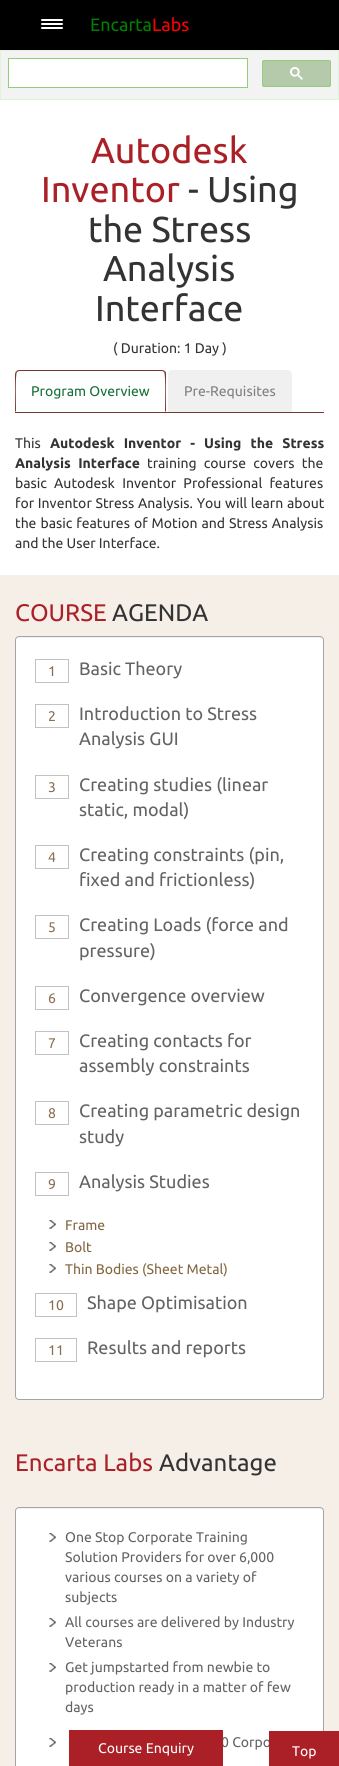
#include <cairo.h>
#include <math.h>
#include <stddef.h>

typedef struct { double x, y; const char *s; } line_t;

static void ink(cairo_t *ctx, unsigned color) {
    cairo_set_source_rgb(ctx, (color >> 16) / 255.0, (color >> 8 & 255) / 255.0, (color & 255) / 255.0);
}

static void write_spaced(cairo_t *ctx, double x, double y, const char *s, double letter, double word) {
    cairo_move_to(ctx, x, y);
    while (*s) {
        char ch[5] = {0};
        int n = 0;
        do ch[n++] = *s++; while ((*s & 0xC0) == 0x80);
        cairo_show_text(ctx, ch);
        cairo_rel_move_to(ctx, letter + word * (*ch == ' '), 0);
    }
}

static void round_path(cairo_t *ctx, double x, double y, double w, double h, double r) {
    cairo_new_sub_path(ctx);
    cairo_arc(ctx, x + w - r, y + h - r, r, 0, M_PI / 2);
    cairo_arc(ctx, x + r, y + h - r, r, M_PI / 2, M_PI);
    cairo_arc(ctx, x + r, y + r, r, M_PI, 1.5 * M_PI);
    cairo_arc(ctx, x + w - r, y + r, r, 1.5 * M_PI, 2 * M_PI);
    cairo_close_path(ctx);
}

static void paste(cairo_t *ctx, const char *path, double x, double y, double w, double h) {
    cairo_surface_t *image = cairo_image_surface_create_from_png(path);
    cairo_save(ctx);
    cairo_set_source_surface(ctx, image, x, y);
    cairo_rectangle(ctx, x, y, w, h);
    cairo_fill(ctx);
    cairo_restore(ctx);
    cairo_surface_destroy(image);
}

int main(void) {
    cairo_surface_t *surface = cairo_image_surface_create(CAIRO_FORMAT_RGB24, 339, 1766);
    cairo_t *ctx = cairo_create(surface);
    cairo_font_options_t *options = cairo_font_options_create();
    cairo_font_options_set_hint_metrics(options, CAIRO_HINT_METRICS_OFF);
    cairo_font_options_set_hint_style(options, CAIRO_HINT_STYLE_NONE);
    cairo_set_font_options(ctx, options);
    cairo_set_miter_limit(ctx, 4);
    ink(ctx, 0xFFFFFF);
    cairo_paint(ctx);
    ink(ctx, 0x000000);
    cairo_rectangle(ctx, 0, 0, 339, 50);
    cairo_fill(ctx);
    ink(ctx, 0xFFFFFF);
    round_path(ctx, 41, 19, 22, 2, 1);
    cairo_fill(ctx);
    round_path(ctx, 41, 23, 22, 2, 1);
    cairo_fill(ctx);
    round_path(ctx, 41, 27, 22, 2, 1);
    cairo_fill(ctx);
    cairo_select_font_face(ctx, "Ubuntu", CAIRO_FONT_SLANT_NORMAL, CAIRO_FONT_WEIGHT_NORMAL);
    cairo_set_font_size(ctx, 18);
    ink(ctx, 0x008000);
    cairo_move_to(ctx, 90, 31);
    cairo_show_text(ctx, "Encarta");
    ink(ctx, 0xFF0000);
    cairo_move_to(ctx, 152, 31);
    cairo_show_text(ctx, "Labs");
    ink(ctx, 0xF3F3F3);
    cairo_rectangle(ctx, 0.5, 50.5, 338, 49);
    cairo_fill_preserve(ctx);
    ink(ctx, 0xE1F3DA);
    cairo_set_line_width(ctx, 1);
    cairo_stroke(ctx);
    ink(ctx, 0xFFFFFF);
    cairo_rectangle(ctx, 8.5, 58.5, 239, 29);
    cairo_fill_preserve(ctx);
    ink(ctx, 0x94CC7A);
    cairo_stroke(ctx);
    ink(ctx, 0xB5C9AB);
    round_path(ctx, 262.5, 60.5, 68, 26, 1.5);
    cairo_fill_preserve(ctx);
    ink(ctx, 0x94CC7A);
    cairo_stroke(ctx);
    paste(ctx, "media/1.png", 290, 67, 13, 13);
    cairo_set_font_size(ctx, 36);
    ink(ctx, 0xAB2027);
    cairo_move_to(ctx, 91, 163);
    cairo_show_text(ctx, "Autodesk");
    cairo_move_to(ctx, 41, 202);
    cairo_show_text(ctx, "Inventor");
    ink(ctx, 0x333333);
    {
        static const line_t items[] = {
            {188, 202, "- Using"},
            {88, 242, "the Stress"},
            {103, 281, "Analysis"},
            {95, 321, "Interface"},
        };
        for (size_t i = 0; i < sizeof items / sizeof *items; i++) {
            cairo_move_to(ctx, items[i].x, items[i].y);
            cairo_show_text(ctx, items[i].s);
        }
    }
    cairo_set_font_size(ctx, 14);
    cairo_move_to(ctx, 113, 353);
    cairo_show_text(ctx, "( Duration: 1 Day )");
    ink(ctx, 0x783631);
    cairo_rectangle(ctx, 15, 412, 309, 1);
    cairo_fill(ctx);
    cairo_new_path(ctx);
    cairo_move_to(ctx, 19, 370);
    cairo_line_to(ctx, 16, 371);
    cairo_line_to(ctx, 17, 372);
    cairo_line_to(ctx, 19, 371);
    cairo_line_to(ctx, 162, 371);
    cairo_line_to(ctx, 164, 372);
    cairo_line_to(ctx, 165, 371);
    cairo_line_to(ctx, 162, 370);
    cairo_close_path(ctx);
    cairo_fill(ctx);
    cairo_new_path(ctx);
    cairo_move_to(ctx, 166, 412);
    cairo_line_to(ctx, 166, 374);
    cairo_curve_to(ctx, 166, 373, 166, 372, 165, 371);
    cairo_line_to(ctx, 164, 372);
    cairo_curve_to(ctx, 166, 374, 165, 406, 165, 411);
    cairo_close_path(ctx);
    cairo_fill(ctx);
    cairo_new_path(ctx);
    cairo_move_to(ctx, 15, 412);
    cairo_line_to(ctx, 16, 411);
    cairo_curve_to(ctx, 16, 406, 15, 374, 17, 372);
    cairo_line_to(ctx, 16, 371);
    cairo_line_to(ctx, 15, 374);
    cairo_close_path(ctx);
    cairo_fill(ctx);
    ink(ctx, 0x176E39);
    cairo_move_to(ctx, 31, 396);
    cairo_show_text(ctx, "Program Overview");
    ink(ctx, 0xF0F0F0);
    cairo_new_path(ctx);
    cairo_move_to(ctx, 172, 370);
    cairo_line_to(ctx, 288, 370);
    cairo_curve_to(ctx, 290, 370, 292, 372, 292, 374);
    cairo_line_to(ctx, 292, 412);
    cairo_line_to(ctx, 168, 412);
    cairo_line_to(ctx, 168, 374);
    cairo_curve_to(ctx, 168, 372, 170, 370, 172, 370);
    cairo_close_path(ctx);
    cairo_fill(ctx);
    ink(ctx, 0x808080);
    cairo_move_to(ctx, 184, 396);
    cairo_show_text(ctx, "Pre-Requisites");
    ink(ctx, 0x333333);
    cairo_move_to(ctx, 15, 448);
    cairo_show_text(ctx, "This");
    cairo_select_font_face(ctx, "Ubuntu", CAIRO_FONT_SLANT_NORMAL, CAIRO_FONT_WEIGHT_BOLD);
    write_spaced(ctx, 50, 448, "Autodesk Inventor - Using the Stress", 0, 5.75);
    write_spaced(ctx, 15, 468, "Analysis Interface", 0, 4);
    cairo_select_font_face(ctx, "Ubuntu", CAIRO_FONT_SLANT_NORMAL, CAIRO_FONT_WEIGHT_NORMAL);
    write_spaced(ctx, 147, 468, "training course covers the", 0, 4);
    write_spaced(ctx, 15, 488, "basic Autodesk Inventor Professional features", 0, 4);
    write_spaced(ctx, 15, 508, "for Inventor Stress Analysis. You will learn about", 0, 0.5);
    write_spaced(ctx, 15, 528, "the basic features of Motion and Stress Analysis", 0, 0.75);
    cairo_move_to(ctx, 15, 548);
    cairo_show_text(ctx, "and the User Interface.");
    ink(ctx, 0xF5EFE8);
    cairo_rectangle(ctx, 0, 575, 339, 1191);
    cairo_fill(ctx);
    cairo_set_font_size(ctx, 24);
    ink(ctx, 0xAB2027);
    cairo_move_to(ctx, 15, 621);
    cairo_show_text(ctx, "COURSE");
    ink(ctx, 0x333333);
    cairo_move_to(ctx, 112, 621);
    cairo_show_text(ctx, "AGENDA");
    ink(ctx, 0xFFFFFF);
    round_path(ctx, 15, 636, 309, 764, 4);
    cairo_fill(ctx);
    ink(ctx, 0xF2F2F2);
    cairo_new_path(ctx);
    cairo_move_to(ctx, 19, 638);
    cairo_line_to(ctx, 320, 638);
    cairo_curve_to(ctx, 322, 638, 323, 639, 323, 641);
    cairo_line_to(ctx, 322, 638);
    cairo_line_to(ctx, 321, 637);
    cairo_line_to(ctx, 19, 637);
    cairo_curve_to(ctx, 17, 637, 16, 639, 16, 641);
    cairo_curve_to(ctx, 16, 639, 17, 638, 19, 638);
    cairo_close_path(ctx);
    cairo_fill(ctx);
    round_path(ctx, 15.5, 636.5, 308, 763, 3.5);
    ink(ctx, 0xA4A4A4);
    cairo_stroke(ctx);
    cairo_rectangle(ctx, 35.5, 659.5, 33, 23);
    ink(ctx, 0xC2C2C2);
    cairo_stroke(ctx);
    cairo_set_font_size(ctx, 14);
    ink(ctx, 0x896F53);
    cairo_move_to(ctx, 48, 676);
    cairo_show_text(ctx, "1");
    cairo_set_font_size(ctx, 18);
    ink(ctx, 0x636363);
    cairo_move_to(ctx, 79, 675);
    cairo_show_text(ctx, "Basic Theory");
    cairo_rectangle(ctx, 35.5, 704.5, 33, 23);
    ink(ctx, 0xC2C2C2);
    cairo_stroke(ctx);
    cairo_set_font_size(ctx, 14);
    ink(ctx, 0x896F53);
    cairo_move_to(ctx, 48, 721);
    cairo_show_text(ctx, "2");
    cairo_set_font_size(ctx, 18);
    ink(ctx, 0x636363);
    cairo_move_to(ctx, 79, 720);
    cairo_show_text(ctx, "Introduction to Stress");
    cairo_move_to(ctx, 79, 745);
    cairo_show_text(ctx, "Analysis GUI");
    cairo_rectangle(ctx, 35.5, 775.5, 33, 23);
    ink(ctx, 0xC2C2C2);
    cairo_stroke(ctx);
    cairo_set_font_size(ctx, 14);
    ink(ctx, 0x896F53);
    cairo_move_to(ctx, 48, 792);
    cairo_show_text(ctx, "3");
    cairo_set_font_size(ctx, 18);
    ink(ctx, 0x636363);
    cairo_move_to(ctx, 79, 791);
    cairo_show_text(ctx, "Creating studies (linear");
    cairo_move_to(ctx, 79, 816);
    cairo_show_text(ctx, "static, modal)");
    cairo_rectangle(ctx, 35.5, 845.5, 33, 23);
    ink(ctx, 0xC2C2C2);
    cairo_stroke(ctx);
    cairo_set_font_size(ctx, 14);
    ink(ctx, 0x896F53);
    cairo_move_to(ctx, 48, 862);
    cairo_show_text(ctx, "4");
    cairo_set_font_size(ctx, 18);
    ink(ctx, 0x636363);
    cairo_move_to(ctx, 79, 861);
    cairo_show_text(ctx, "Creating constraints (pin,");
    cairo_move_to(ctx, 79, 886);
    cairo_show_text(ctx, "fixed and frictionless)");
    cairo_rectangle(ctx, 35.5, 915.5, 33, 23);
    ink(ctx, 0xC2C2C2);
    cairo_stroke(ctx);
    cairo_set_font_size(ctx, 14);
    ink(ctx, 0x896F53);
    cairo_move_to(ctx, 48, 932);
    cairo_show_text(ctx, "5");
    cairo_set_font_size(ctx, 18);
    ink(ctx, 0x636363);
    cairo_move_to(ctx, 79, 931);
    cairo_show_text(ctx, "Creating Loads (force and");
    cairo_move_to(ctx, 79, 957);
    cairo_show_text(ctx, "pressure)");
    cairo_rectangle(ctx, 35.5, 986.5, 33, 23);
    ink(ctx, 0xC2C2C2);
    cairo_stroke(ctx);
    cairo_set_font_size(ctx, 14);
    ink(ctx, 0x896F53);
    cairo_move_to(ctx, 48, 1003);
    cairo_show_text(ctx, "6");
    cairo_set_font_size(ctx, 18);
    ink(ctx, 0x636363);
    cairo_move_to(ctx, 79, 1002);
    cairo_show_text(ctx, "Convergence overview");
    cairo_rectangle(ctx, 35.5, 1031.5, 33, 23);
    ink(ctx, 0xC2C2C2);
    cairo_stroke(ctx);
    cairo_set_font_size(ctx, 14);
    ink(ctx, 0x896F53);
    cairo_move_to(ctx, 48, 1048);
    cairo_show_text(ctx, "7");
    cairo_set_font_size(ctx, 18);
    ink(ctx, 0x636363);
    cairo_move_to(ctx, 79, 1047);
    cairo_show_text(ctx, "Creating contacts for");
    cairo_move_to(ctx, 79, 1072);
    cairo_show_text(ctx, "assembly constraints");
    cairo_rectangle(ctx, 35.5, 1101.5, 33, 23);
    ink(ctx, 0xC2C2C2);
    cairo_stroke(ctx);
    cairo_set_font_size(ctx, 14);
    ink(ctx, 0x896F53);
    cairo_move_to(ctx, 48, 1118);
    cairo_show_text(ctx, "8");
    cairo_set_font_size(ctx, 18);
    ink(ctx, 0x636363);
    cairo_move_to(ctx, 79, 1117);
    cairo_show_text(ctx, "Creating parametric design");
    cairo_move_to(ctx, 79, 1143);
    cairo_show_text(ctx, "study");
    cairo_rectangle(ctx, 35.5, 1172.5, 33, 23);
    ink(ctx, 0xC2C2C2);
    cairo_stroke(ctx);
    cairo_set_font_size(ctx, 14);
    ink(ctx, 0x896F53);
    cairo_move_to(ctx, 48, 1189);
    cairo_show_text(ctx, "9");
    cairo_set_font_size(ctx, 18);
    ink(ctx, 0x636363);
    cairo_move_to(ctx, 79, 1188);
    cairo_show_text(ctx, "Analysis Studies");
    paste(ctx, "media/2.png", 49, 1220, 7, 9);
    cairo_set_font_size(ctx, 14);
    ink(ctx, 0x836640);
    cairo_move_to(ctx, 65, 1230);
    cairo_show_text(ctx, "Frame");
    paste(ctx, "media/2.png", 49, 1242, 7, 9);
    cairo_move_to(ctx, 65, 1252);
    cairo_show_text(ctx, "Bolt");
    paste(ctx, "media/2.png", 49, 1264, 7, 9);
    cairo_move_to(ctx, 65, 1274);
    cairo_show_text(ctx, "Thin Bodies (Sheet Metal)");
    cairo_rectangle(ctx, 35.5, 1293.5, 41, 23);
    ink(ctx, 0xC2C2C2);
    cairo_stroke(ctx);
    ink(ctx, 0x896F53);
    cairo_move_to(ctx, 48, 1310);
    cairo_show_text(ctx, "10");
    cairo_set_font_size(ctx, 18);
    ink(ctx, 0x636363);
    cairo_move_to(ctx, 87, 1309);
    cairo_show_text(ctx, "Shape Optimisation");
    cairo_rectangle(ctx, 35.5, 1338.5, 41, 23);
    ink(ctx, 0xC2C2C2);
    cairo_stroke(ctx);
    cairo_set_font_size(ctx, 14);
    ink(ctx, 0x896F53);
    cairo_move_to(ctx, 48, 1355);
    cairo_show_text(ctx, "11");
    cairo_set_font_size(ctx, 18);
    ink(ctx, 0x636363);
    cairo_move_to(ctx, 87, 1354);
    cairo_show_text(ctx, "Results and reports");
    cairo_set_font_size(ctx, 24);
    ink(ctx, 0xAB2027);
    cairo_move_to(ctx, 15, 1471);
    cairo_show_text(ctx, "Encarta Labs");
    ink(ctx, 0x333333);
    cairo_move_to(ctx, 159, 1471);
    cairo_show_text(ctx, "Advantage");
    ink(ctx, 0xFFFFFF);
    round_path(ctx, 15, 1507, 309, 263, 4);
    cairo_fill(ctx);
    ink(ctx, 0xF2F2F2);
    cairo_new_path(ctx);
    cairo_move_to(ctx, 19, 1509);
    cairo_line_to(ctx, 320, 1509);
    cairo_curve_to(ctx, 322, 1509, 323, 1510, 323, 1512);
    cairo_line_to(ctx, 322, 1509);
    cairo_line_to(ctx, 321, 1508);
    cairo_line_to(ctx, 19, 1508);
    cairo_curve_to(ctx, 17, 1508, 16, 1510, 16, 1512);
    cairo_curve_to(ctx, 16, 1510, 17, 1509, 19, 1509);
    cairo_close_path(ctx);
    cairo_fill(ctx);
    round_path(ctx, 15.5, 1507.5, 308, 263, 3.5);
    ink(ctx, 0xA4A4A4);
    cairo_stroke(ctx);
    paste(ctx, "media/2.png", 49, 1533, 7, 9);
    cairo_set_font_size(ctx, 14);
    ink(ctx, 0x636363);
    {
        static const line_t items[] = {
            {65, 1542, "One Stop Corporate Training"},
            {65, 1562, "Solution Providers for over 6,000"},
            {65, 1582, "various courses on a variety of"},
            {65, 1602, "subjects"},
        };
        for (size_t i = 0; i < sizeof items / sizeof *items; i++) {
            cairo_move_to(ctx, items[i].x, items[i].y);
            cairo_show_text(ctx, items[i].s);
        }
    }
    paste(ctx, "media/2.png", 49, 1618, 7, 9);
    cairo_move_to(ctx, 65, 1627);
    cairo_show_text(ctx, "All courses are delivered by Industry");
    cairo_move_to(ctx, 65, 1647);
    cairo_show_text(ctx, "Veterans");
    paste(ctx, "media/2.png", 49, 1663, 7, 9);
    {
        static const line_t items[] = {
            {65, 1672, "Get jumpstarted from newbie to"},
            {65, 1692, "production ready in a matter of few"},
            {65, 1712, "days"},
        };
        for (size_t i = 0; i < sizeof items / sizeof *items; i++) {
            cairo_move_to(ctx, items[i].x, items[i].y);
            cairo_show_text(ctx, items[i].s);
        }
    }
    paste(ctx, "media/2.png", 49, 1738, 7, 9);
    cairo_move_to(ctx, 221, 1747);
    cairo_show_text(ctx, "0 Corpo");
    ink(ctx, 0xAB2027);
    cairo_rectangle(ctx, 69, 1730, 154, 36);
    cairo_fill(ctx);
    ink(ctx, 0xFFFFFF);
    cairo_move_to(ctx, 98, 1753);
    cairo_show_text(ctx, "Course Enquiry");
    ink(ctx, 0xAB2027);
    cairo_rectangle(ctx, 269, 1731, 70, 35);
    cairo_fill(ctx);
    ink(ctx, 0xFFFFFF);
    cairo_move_to(ctx, 292, 1756);
    cairo_show_text(ctx, "Top");
    cairo_surface_write_to_png(surface, "image.png");
    cairo_font_options_destroy(options);
    cairo_destroy(ctx);
    cairo_surface_destroy(surface);
    return 0;
}
